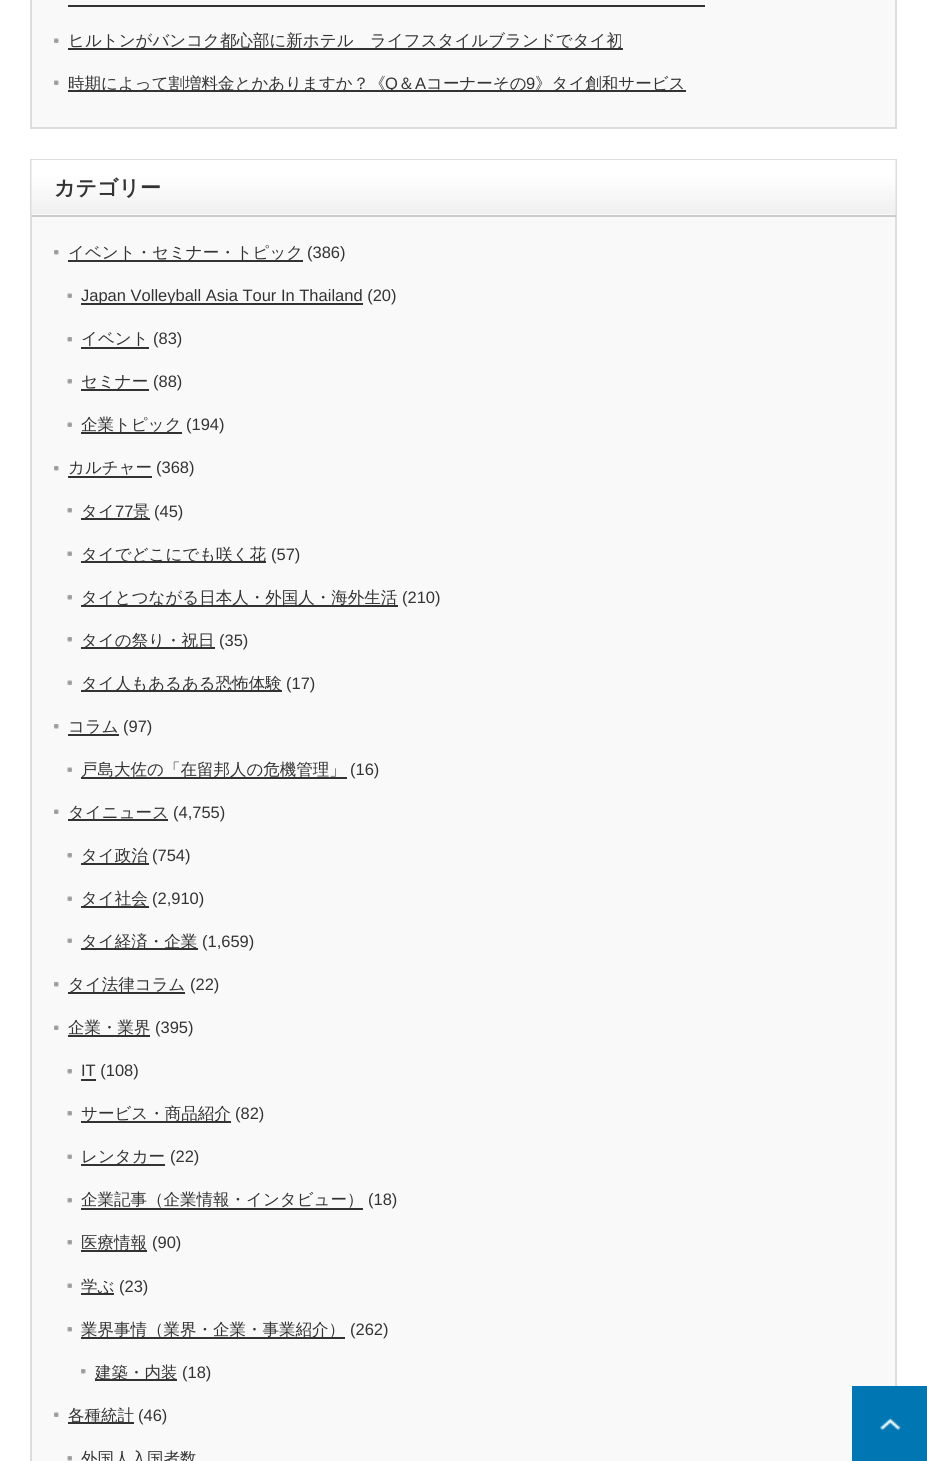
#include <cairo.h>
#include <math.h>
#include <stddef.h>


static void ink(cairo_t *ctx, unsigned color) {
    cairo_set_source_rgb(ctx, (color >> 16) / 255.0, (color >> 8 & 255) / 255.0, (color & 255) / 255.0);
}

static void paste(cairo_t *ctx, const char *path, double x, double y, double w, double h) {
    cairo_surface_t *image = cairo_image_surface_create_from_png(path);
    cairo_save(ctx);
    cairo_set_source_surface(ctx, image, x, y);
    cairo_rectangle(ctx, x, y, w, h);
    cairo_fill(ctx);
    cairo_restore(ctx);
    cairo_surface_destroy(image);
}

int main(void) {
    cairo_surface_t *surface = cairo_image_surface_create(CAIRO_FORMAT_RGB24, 927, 1461);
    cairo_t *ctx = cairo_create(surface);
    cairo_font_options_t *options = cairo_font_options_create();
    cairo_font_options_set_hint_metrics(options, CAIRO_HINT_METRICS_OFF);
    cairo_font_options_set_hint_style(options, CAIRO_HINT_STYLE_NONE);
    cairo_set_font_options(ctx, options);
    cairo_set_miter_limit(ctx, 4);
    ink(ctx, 0xFFFFFF);
    cairo_paint(ctx);
    ink(ctx, 0xF9F9F9);
    cairo_rectangle(ctx, 31, -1, 865, 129);
    cairo_fill_preserve(ctx);
    ink(ctx, 0xDDDDDD);
    cairo_stroke(ctx);
    ink(ctx, 0x333333);
    cairo_rectangle(ctx, 68, 5, 637, 2);
    cairo_fill(ctx);
    paste(ctx, "media/1.png", 54, 38, 5, 5);
    cairo_rectangle(ctx, 68, 48, 555, 2);
    cairo_fill(ctx);
    cairo_select_font_face(ctx, "WenQuanYi Zen Hei Medium", CAIRO_FONT_SLANT_NORMAL, CAIRO_FONT_WEIGHT_NORMAL);
    cairo_set_font_size(ctx, 16.5);
    cairo_move_to(ctx, 68, 46);
    cairo_show_text(ctx, "ヒルトンがバンコク都心部に新ホテル　ライフスタイルブランドでタイ初");
    paste(ctx, "media/1.png", 54, 80, 5, 5);
    cairo_rectangle(ctx, 68, 90, 618, 2);
    cairo_fill(ctx);
    cairo_move_to(ctx, 68, 89);
    cairo_show_text(ctx, "時期によって割増料金とかありますか？《");
    cairo_select_font_face(ctx, "Liberation Sans", CAIRO_FONT_SLANT_NORMAL, CAIRO_FONT_WEIGHT_NORMAL);
    cairo_move_to(ctx, 385, 89);
    cairo_show_text(ctx, "Q");
    cairo_select_font_face(ctx, "WenQuanYi Zen Hei Medium", CAIRO_FONT_SLANT_NORMAL, CAIRO_FONT_WEIGHT_NORMAL);
    cairo_move_to(ctx, 398, 89);
    cairo_show_text(ctx, "＆");
    cairo_select_font_face(ctx, "Liberation Sans", CAIRO_FONT_SLANT_NORMAL, CAIRO_FONT_WEIGHT_NORMAL);
    cairo_move_to(ctx, 415, 89);
    cairo_show_text(ctx, "A");
    cairo_select_font_face(ctx, "WenQuanYi Zen Hei Medium", CAIRO_FONT_SLANT_NORMAL, CAIRO_FONT_WEIGHT_NORMAL);
    cairo_move_to(ctx, 426, 89);
    cairo_show_text(ctx, "コーナーその");
    cairo_select_font_face(ctx, "Liberation Sans", CAIRO_FONT_SLANT_NORMAL, CAIRO_FONT_WEIGHT_NORMAL);
    cairo_move_to(ctx, 526, 89);
    cairo_show_text(ctx, "9");
    cairo_select_font_face(ctx, "WenQuanYi Zen Hei Medium", CAIRO_FONT_SLANT_NORMAL, CAIRO_FONT_WEIGHT_NORMAL);
    cairo_move_to(ctx, 535, 89);
    cairo_show_text(ctx, "》タイ創和サービス");
    ink(ctx, 0xF9F9F9);
    cairo_rectangle(ctx, 32, 214, 863, 1247);
    cairo_fill(ctx);
    cairo_rectangle(ctx, 31, 160, 865, 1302);
    ink(ctx, 0xDDDDDD);
    cairo_stroke(ctx);
    paste(ctx, "media/2.png", 31, 160, 865, 54);
    ink(ctx, 0xCCCCCC);
    cairo_rectangle(ctx, 32, 215, 864, 2);
    cairo_fill(ctx);
    cairo_select_font_face(ctx, "WenQuanYi Zen Hei", CAIRO_FONT_SLANT_NORMAL, CAIRO_FONT_WEIGHT_BOLD);
    cairo_set_font_size(ctx, 21);
    ink(ctx, 0x333333);
    cairo_move_to(ctx, 54, 195);
    cairo_show_text(ctx, "カテゴリー");
    paste(ctx, "media/3.png", 54, 250, 5, 5);
    cairo_rectangle(ctx, 68, 260, 235, 2);
    cairo_fill(ctx);
    cairo_select_font_face(ctx, "WenQuanYi Zen Hei Medium", CAIRO_FONT_SLANT_NORMAL, CAIRO_FONT_WEIGHT_NORMAL);
    cairo_set_font_size(ctx, 16.5);
    cairo_move_to(ctx, 68, 258);
    cairo_show_text(ctx, "イベント・セミナー・トピック");
    cairo_select_font_face(ctx, "Liberation Sans", CAIRO_FONT_SLANT_NORMAL, CAIRO_FONT_WEIGHT_NORMAL);
    cairo_move_to(ctx, 307, 258);
    cairo_show_text(ctx, "(386)");
    paste(ctx, "media/4.png", 67, 293, 5, 5);
    cairo_rectangle(ctx, 81, 303, 282, 2);
    cairo_fill(ctx);
    cairo_move_to(ctx, 81, 301);
    cairo_show_text(ctx, "Japan Volleyball Asia Tour In Thailand (20)");
    paste(ctx, "media/5.png", 67, 337, 5, 5);
    cairo_select_font_face(ctx, "WenQuanYi Zen Hei Medium", CAIRO_FONT_SLANT_NORMAL, CAIRO_FONT_WEIGHT_NORMAL);
    cairo_move_to(ctx, 81, 344);
    cairo_show_text(ctx, "イベント");
    cairo_rectangle(ctx, 81, 347, 68, 2);
    cairo_fill(ctx);
    cairo_select_font_face(ctx, "Liberation Sans", CAIRO_FONT_SLANT_NORMAL, CAIRO_FONT_WEIGHT_NORMAL);
    cairo_move_to(ctx, 153, 344);
    cairo_show_text(ctx, "(83)");
    paste(ctx, "media/5.png", 67, 379, 5, 5);
    cairo_rectangle(ctx, 81, 389, 68, 2);
    cairo_fill(ctx);
    cairo_select_font_face(ctx, "WenQuanYi Zen Hei Medium", CAIRO_FONT_SLANT_NORMAL, CAIRO_FONT_WEIGHT_NORMAL);
    cairo_move_to(ctx, 81, 387);
    cairo_show_text(ctx, "セミナー");
    cairo_select_font_face(ctx, "Liberation Sans", CAIRO_FONT_SLANT_NORMAL, CAIRO_FONT_WEIGHT_NORMAL);
    cairo_move_to(ctx, 153, 387);
    cairo_show_text(ctx, "(88)");
    paste(ctx, "media/4.png", 67, 422, 5, 5);
    cairo_rectangle(ctx, 81, 432, 101, 2);
    cairo_fill(ctx);
    cairo_select_font_face(ctx, "WenQuanYi Zen Hei Medium", CAIRO_FONT_SLANT_NORMAL, CAIRO_FONT_WEIGHT_NORMAL);
    cairo_move_to(ctx, 81, 430);
    cairo_show_text(ctx, "企業トピック");
    cairo_select_font_face(ctx, "Liberation Sans", CAIRO_FONT_SLANT_NORMAL, CAIRO_FONT_WEIGHT_NORMAL);
    cairo_move_to(ctx, 186, 430);
    cairo_show_text(ctx, "(194)");
    paste(ctx, "media/3.png", 54, 466, 5, 5);
    cairo_select_font_face(ctx, "WenQuanYi Zen Hei Medium", CAIRO_FONT_SLANT_NORMAL, CAIRO_FONT_WEIGHT_NORMAL);
    cairo_move_to(ctx, 68, 473);
    cairo_show_text(ctx, "カルチャー");
    cairo_rectangle(ctx, 68, 476, 84, 2);
    cairo_fill(ctx);
    cairo_select_font_face(ctx, "Liberation Sans", CAIRO_FONT_SLANT_NORMAL, CAIRO_FONT_WEIGHT_NORMAL);
    cairo_move_to(ctx, 156, 473);
    cairo_show_text(ctx, "(368)");
    paste(ctx, "media/5.png", 67, 508, 5, 5);
    cairo_rectangle(ctx, 81, 518, 69, 2);
    cairo_fill(ctx);
    cairo_select_font_face(ctx, "WenQuanYi Zen Hei Medium", CAIRO_FONT_SLANT_NORMAL, CAIRO_FONT_WEIGHT_NORMAL);
    cairo_move_to(ctx, 81, 517);
    cairo_show_text(ctx, "タイ");
    cairo_select_font_face(ctx, "Liberation Sans", CAIRO_FONT_SLANT_NORMAL, CAIRO_FONT_WEIGHT_NORMAL);
    cairo_move_to(ctx, 115, 517);
    cairo_show_text(ctx, "77");
    cairo_select_font_face(ctx, "WenQuanYi Zen Hei Medium", CAIRO_FONT_SLANT_NORMAL, CAIRO_FONT_WEIGHT_NORMAL);
    cairo_move_to(ctx, 133, 517);
    cairo_show_text(ctx, "景");
    cairo_select_font_face(ctx, "Liberation Sans", CAIRO_FONT_SLANT_NORMAL, CAIRO_FONT_WEIGHT_NORMAL);
    cairo_move_to(ctx, 154, 517);
    cairo_show_text(ctx, "(45)");
    paste(ctx, "media/4.png", 67, 551, 5, 5);
    cairo_rectangle(ctx, 81, 561, 185, 2);
    cairo_fill(ctx);
    cairo_select_font_face(ctx, "WenQuanYi Zen Hei Medium", CAIRO_FONT_SLANT_NORMAL, CAIRO_FONT_WEIGHT_NORMAL);
    cairo_move_to(ctx, 81, 560);
    cairo_show_text(ctx, "タイでどこにでも咲く花");
    cairo_select_font_face(ctx, "Liberation Sans", CAIRO_FONT_SLANT_NORMAL, CAIRO_FONT_WEIGHT_NORMAL);
    cairo_move_to(ctx, 271, 560);
    cairo_show_text(ctx, "(57)");
    paste(ctx, "media/5.png", 67, 595, 5, 5);
    cairo_rectangle(ctx, 81, 605, 317, 2);
    cairo_fill(ctx);
    cairo_select_font_face(ctx, "WenQuanYi Zen Hei Medium", CAIRO_FONT_SLANT_NORMAL, CAIRO_FONT_WEIGHT_NORMAL);
    cairo_move_to(ctx, 81, 603);
    cairo_show_text(ctx, "タイとつながる日本人・外国人・海外生活");
    cairo_select_font_face(ctx, "Liberation Sans", CAIRO_FONT_SLANT_NORMAL, CAIRO_FONT_WEIGHT_NORMAL);
    cairo_move_to(ctx, 402, 603);
    cairo_show_text(ctx, "(210)");
    paste(ctx, "media/5.png", 67, 637, 5, 5);
    cairo_rectangle(ctx, 81, 647, 134, 2);
    cairo_fill(ctx);
    cairo_select_font_face(ctx, "WenQuanYi Zen Hei Medium", CAIRO_FONT_SLANT_NORMAL, CAIRO_FONT_WEIGHT_NORMAL);
    cairo_move_to(ctx, 81, 646);
    cairo_show_text(ctx, "タイの祭り・祝日");
    cairo_select_font_face(ctx, "Liberation Sans", CAIRO_FONT_SLANT_NORMAL, CAIRO_FONT_WEIGHT_NORMAL);
    cairo_move_to(ctx, 219, 646);
    cairo_show_text(ctx, "(35)");
    paste(ctx, "media/4.png", 67, 680, 5, 5);
    cairo_rectangle(ctx, 81, 690, 201, 2);
    cairo_fill(ctx);
    cairo_select_font_face(ctx, "WenQuanYi Zen Hei Medium", CAIRO_FONT_SLANT_NORMAL, CAIRO_FONT_WEIGHT_NORMAL);
    cairo_move_to(ctx, 81, 689);
    cairo_show_text(ctx, "タイ人もあるある恐怖体験");
    cairo_select_font_face(ctx, "Liberation Sans", CAIRO_FONT_SLANT_NORMAL, CAIRO_FONT_WEIGHT_NORMAL);
    cairo_move_to(ctx, 286, 689);
    cairo_show_text(ctx, "(17)");
    paste(ctx, "media/3.png", 54, 724, 5, 5);
    cairo_select_font_face(ctx, "WenQuanYi Zen Hei Medium", CAIRO_FONT_SLANT_NORMAL, CAIRO_FONT_WEIGHT_NORMAL);
    cairo_move_to(ctx, 68, 732);
    cairo_show_text(ctx, "コラム");
    cairo_rectangle(ctx, 68, 734, 51, 2);
    cairo_fill(ctx);
    cairo_select_font_face(ctx, "Liberation Sans", CAIRO_FONT_SLANT_NORMAL, CAIRO_FONT_WEIGHT_NORMAL);
    cairo_move_to(ctx, 123, 732);
    cairo_show_text(ctx, "(97)");
    paste(ctx, "media/4.png", 67, 767, 5, 5);
    cairo_rectangle(ctx, 81, 777, 266, 2);
    cairo_fill(ctx);
    cairo_select_font_face(ctx, "WenQuanYi Zen Hei Medium", CAIRO_FONT_SLANT_NORMAL, CAIRO_FONT_WEIGHT_NORMAL);
    cairo_move_to(ctx, 81, 775);
    cairo_show_text(ctx, "戸島大佐の「在留邦人の危機管理」");
    cairo_select_font_face(ctx, "Liberation Sans", CAIRO_FONT_SLANT_NORMAL, CAIRO_FONT_WEIGHT_NORMAL);
    cairo_move_to(ctx, 350, 775);
    cairo_show_text(ctx, "(16)");
    paste(ctx, "media/1.png", 54, 809, 5, 5);
    cairo_rectangle(ctx, 68, 819, 100, 2);
    cairo_fill(ctx);
    cairo_select_font_face(ctx, "WenQuanYi Zen Hei Medium", CAIRO_FONT_SLANT_NORMAL, CAIRO_FONT_WEIGHT_NORMAL);
    cairo_move_to(ctx, 68, 818);
    cairo_show_text(ctx, "タイニュース");
    cairo_select_font_face(ctx, "Liberation Sans", CAIRO_FONT_SLANT_NORMAL, CAIRO_FONT_WEIGHT_NORMAL);
    cairo_move_to(ctx, 173, 818);
    cairo_show_text(ctx, "(4,755)");
    paste(ctx, "media/5.png", 67, 853, 5, 5);
    cairo_rectangle(ctx, 81, 863, 68, 2);
    cairo_fill(ctx);
    cairo_select_font_face(ctx, "WenQuanYi Zen Hei Medium", CAIRO_FONT_SLANT_NORMAL, CAIRO_FONT_WEIGHT_NORMAL);
    cairo_move_to(ctx, 81, 861);
    cairo_show_text(ctx, "タイ政治");
    cairo_select_font_face(ctx, "Liberation Sans", CAIRO_FONT_SLANT_NORMAL, CAIRO_FONT_WEIGHT_NORMAL);
    cairo_move_to(ctx, 152, 861);
    cairo_show_text(ctx, "(754)");
    paste(ctx, "media/4.png", 67, 896, 5, 5);
    cairo_rectangle(ctx, 81, 906, 68, 2);
    cairo_fill(ctx);
    cairo_select_font_face(ctx, "WenQuanYi Zen Hei Medium", CAIRO_FONT_SLANT_NORMAL, CAIRO_FONT_WEIGHT_NORMAL);
    cairo_move_to(ctx, 81, 904);
    cairo_show_text(ctx, "タイ社会");
    cairo_select_font_face(ctx, "Liberation Sans", CAIRO_FONT_SLANT_NORMAL, CAIRO_FONT_WEIGHT_NORMAL);
    cairo_move_to(ctx, 152, 904);
    cairo_show_text(ctx, "(2,910)");
    paste(ctx, "media/4.png", 67, 938, 5, 5);
    cairo_rectangle(ctx, 81, 948, 117, 2);
    cairo_fill(ctx);
    cairo_select_font_face(ctx, "WenQuanYi Zen Hei Medium", CAIRO_FONT_SLANT_NORMAL, CAIRO_FONT_WEIGHT_NORMAL);
    cairo_move_to(ctx, 81, 947);
    cairo_show_text(ctx, "タイ経済・企業");
    cairo_select_font_face(ctx, "Liberation Sans", CAIRO_FONT_SLANT_NORMAL, CAIRO_FONT_WEIGHT_NORMAL);
    cairo_move_to(ctx, 202, 947);
    cairo_show_text(ctx, "(1,659)");
    paste(ctx, "media/3.png", 54, 982, 5, 5);
    cairo_rectangle(ctx, 68, 992, 117, 2);
    cairo_fill(ctx);
    cairo_select_font_face(ctx, "WenQuanYi Zen Hei Medium", CAIRO_FONT_SLANT_NORMAL, CAIRO_FONT_WEIGHT_NORMAL);
    cairo_move_to(ctx, 68, 990);
    cairo_show_text(ctx, "タイ法律コラム");
    cairo_select_font_face(ctx, "Liberation Sans", CAIRO_FONT_SLANT_NORMAL, CAIRO_FONT_WEIGHT_NORMAL);
    cairo_move_to(ctx, 190, 990);
    cairo_show_text(ctx, "(22)");
    paste(ctx, "media/1.png", 54, 1025, 5, 5);
    cairo_rectangle(ctx, 68, 1035, 82, 2);
    cairo_fill(ctx);
    cairo_select_font_face(ctx, "WenQuanYi Zen Hei Medium", CAIRO_FONT_SLANT_NORMAL, CAIRO_FONT_WEIGHT_NORMAL);
    cairo_move_to(ctx, 68, 1033);
    cairo_show_text(ctx, "企業・業界");
    cairo_select_font_face(ctx, "Liberation Sans", CAIRO_FONT_SLANT_NORMAL, CAIRO_FONT_WEIGHT_NORMAL);
    cairo_move_to(ctx, 155, 1033);
    cairo_show_text(ctx, "(395)");
    paste(ctx, "media/5.png", 67, 1069, 5, 5);
    cairo_rectangle(ctx, 81, 1079, 15, 2);
    cairo_fill(ctx);
    cairo_move_to(ctx, 81, 1076);
    cairo_show_text(ctx, "IT (108)");
    paste(ctx, "media/5.png", 67, 1111, 5, 5);
    cairo_rectangle(ctx, 81, 1121, 150, 2);
    cairo_fill(ctx);
    cairo_select_font_face(ctx, "WenQuanYi Zen Hei Medium", CAIRO_FONT_SLANT_NORMAL, CAIRO_FONT_WEIGHT_NORMAL);
    cairo_move_to(ctx, 81, 1119);
    cairo_show_text(ctx, "サービス・商品紹介");
    cairo_select_font_face(ctx, "Liberation Sans", CAIRO_FONT_SLANT_NORMAL, CAIRO_FONT_WEIGHT_NORMAL);
    cairo_move_to(ctx, 235, 1119);
    cairo_show_text(ctx, "(82)");
    paste(ctx, "media/4.png", 67, 1154, 5, 5);
    cairo_rectangle(ctx, 81, 1164, 84, 2);
    cairo_fill(ctx);
    cairo_select_font_face(ctx, "WenQuanYi Zen Hei Medium", CAIRO_FONT_SLANT_NORMAL, CAIRO_FONT_WEIGHT_NORMAL);
    cairo_move_to(ctx, 81, 1162);
    cairo_show_text(ctx, "レンタカー");
    cairo_select_font_face(ctx, "Liberation Sans", CAIRO_FONT_SLANT_NORMAL, CAIRO_FONT_WEIGHT_NORMAL);
    cairo_move_to(ctx, 170, 1162);
    cairo_show_text(ctx, "(22)");
    paste(ctx, "media/5.png", 67, 1198, 5, 5);
    cairo_select_font_face(ctx, "WenQuanYi Zen Hei Medium", CAIRO_FONT_SLANT_NORMAL, CAIRO_FONT_WEIGHT_NORMAL);
    cairo_move_to(ctx, 81, 1205);
    cairo_show_text(ctx, "企業記事（企業情報・インタビュー）");
    cairo_rectangle(ctx, 81, 1208, 282, 2);
    cairo_fill(ctx);
    cairo_select_font_face(ctx, "Liberation Sans", CAIRO_FONT_SLANT_NORMAL, CAIRO_FONT_WEIGHT_NORMAL);
    cairo_move_to(ctx, 368, 1205);
    cairo_show_text(ctx, "(18)");
    paste(ctx, "media/5.png", 67, 1240, 5, 5);
    cairo_rectangle(ctx, 81, 1250, 66, 2);
    cairo_fill(ctx);
    cairo_select_font_face(ctx, "WenQuanYi Zen Hei Medium", CAIRO_FONT_SLANT_NORMAL, CAIRO_FONT_WEIGHT_NORMAL);
    cairo_move_to(ctx, 81, 1248);
    cairo_show_text(ctx, "医療情報");
    cairo_select_font_face(ctx, "Liberation Sans", CAIRO_FONT_SLANT_NORMAL, CAIRO_FONT_WEIGHT_NORMAL);
    cairo_move_to(ctx, 152, 1248);
    cairo_show_text(ctx, "(90)");
    paste(ctx, "media/4.png", 67, 1283, 5, 5);
    cairo_rectangle(ctx, 81, 1293, 33, 2);
    cairo_fill(ctx);
    cairo_select_font_face(ctx, "WenQuanYi Zen Hei Medium", CAIRO_FONT_SLANT_NORMAL, CAIRO_FONT_WEIGHT_NORMAL);
    cairo_move_to(ctx, 81, 1292);
    cairo_show_text(ctx, "学ぶ");
    cairo_select_font_face(ctx, "Liberation Sans", CAIRO_FONT_SLANT_NORMAL, CAIRO_FONT_WEIGHT_NORMAL);
    cairo_move_to(ctx, 119, 1292);
    cairo_show_text(ctx, "(23)");
    paste(ctx, "media/5.png", 67, 1327, 5, 5);
    cairo_rectangle(ctx, 81, 1337, 264, 2);
    cairo_fill(ctx);
    cairo_select_font_face(ctx, "WenQuanYi Zen Hei Medium", CAIRO_FONT_SLANT_NORMAL, CAIRO_FONT_WEIGHT_NORMAL);
    cairo_move_to(ctx, 81, 1335);
    cairo_show_text(ctx, "業界事情（業界・企業・事業紹介）");
    cairo_select_font_face(ctx, "Liberation Sans", CAIRO_FONT_SLANT_NORMAL, CAIRO_FONT_WEIGHT_NORMAL);
    cairo_move_to(ctx, 350, 1335);
    cairo_show_text(ctx, "(262)");
    paste(ctx, "media/3.png", 81, 1369, 5, 5);
    cairo_rectangle(ctx, 95, 1379, 82, 2);
    cairo_fill(ctx);
    cairo_select_font_face(ctx, "WenQuanYi Zen Hei Medium", CAIRO_FONT_SLANT_NORMAL, CAIRO_FONT_WEIGHT_NORMAL);
    cairo_move_to(ctx, 95, 1378);
    cairo_show_text(ctx, "建築・内装");
    cairo_select_font_face(ctx, "Liberation Sans", CAIRO_FONT_SLANT_NORMAL, CAIRO_FONT_WEIGHT_NORMAL);
    cairo_move_to(ctx, 182, 1378);
    cairo_show_text(ctx, "(18)");
    paste(ctx, "media/1.png", 54, 1412, 5, 5);
    cairo_rectangle(ctx, 68, 1422, 66, 2);
    cairo_fill(ctx);
    cairo_select_font_face(ctx, "WenQuanYi Zen Hei Medium", CAIRO_FONT_SLANT_NORMAL, CAIRO_FONT_WEIGHT_NORMAL);
    cairo_move_to(ctx, 68, 1421);
    cairo_show_text(ctx, "各種統計");
    cairo_select_font_face(ctx, "Liberation Sans", CAIRO_FONT_SLANT_NORMAL, CAIRO_FONT_WEIGHT_NORMAL);
    cairo_move_to(ctx, 138, 1421);
    cairo_show_text(ctx, "(46)");
    paste(ctx, "media/5.png", 67, 1456, 5, 5);
    cairo_select_font_face(ctx, "WenQuanYi Zen Hei Medium", CAIRO_FONT_SLANT_NORMAL, CAIRO_FONT_WEIGHT_NORMAL);
    cairo_move_to(ctx, 81, 1464);
    cairo_show_text(ctx, "外国人入国者数");
    ink(ctx, 0x0077B3);
    cairo_rectangle(ctx, 852, 1386, 75, 75);
    cairo_fill(ctx);
    paste(ctx, "media/6.png", 880, 1418, 21, 12);
    cairo_surface_write_to_png(surface, "image.png");
    cairo_font_options_destroy(options);
    cairo_destroy(ctx);
    cairo_surface_destroy(surface);
    return 0;
}
